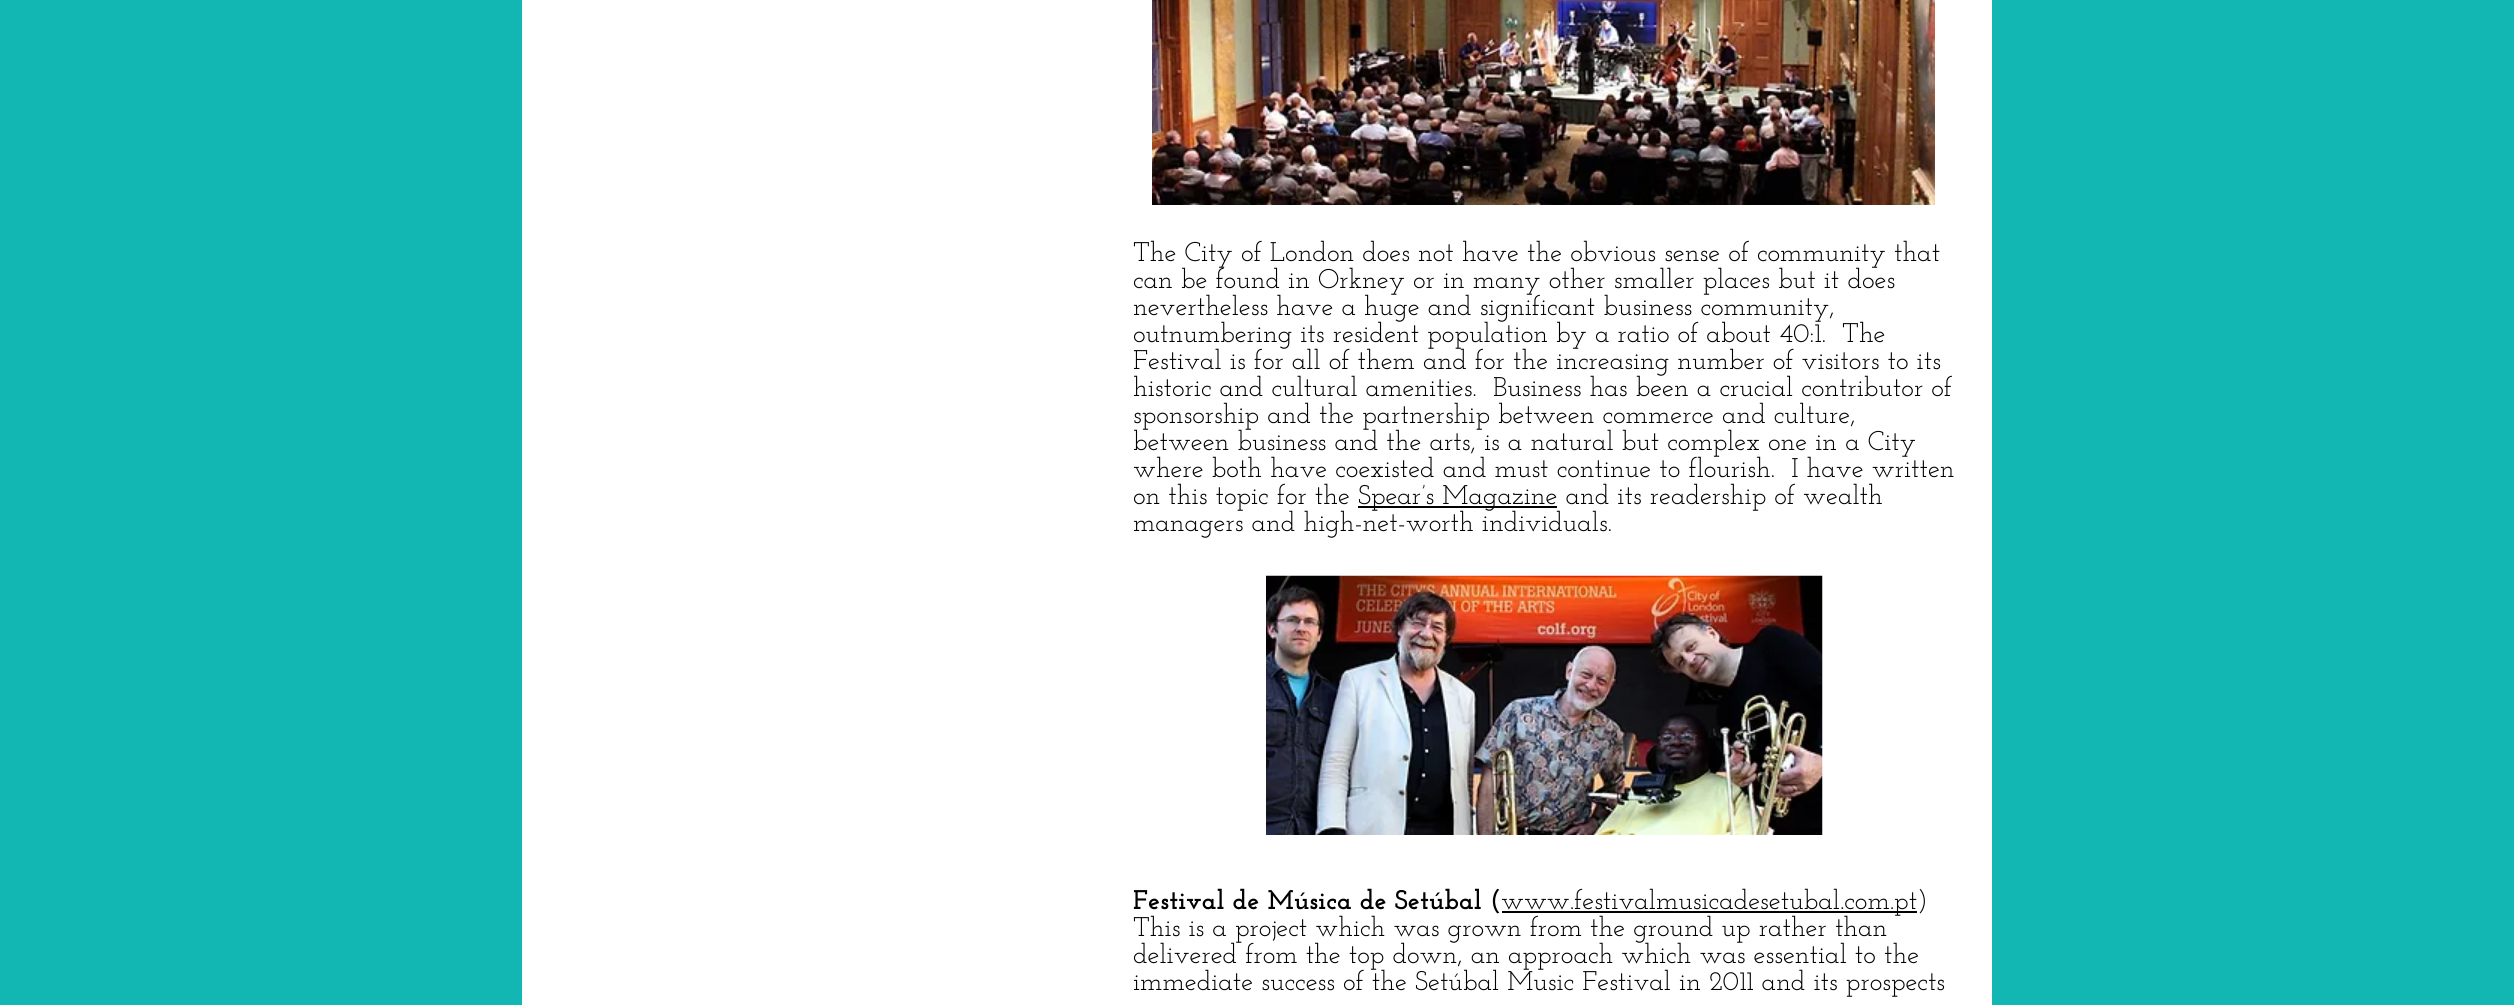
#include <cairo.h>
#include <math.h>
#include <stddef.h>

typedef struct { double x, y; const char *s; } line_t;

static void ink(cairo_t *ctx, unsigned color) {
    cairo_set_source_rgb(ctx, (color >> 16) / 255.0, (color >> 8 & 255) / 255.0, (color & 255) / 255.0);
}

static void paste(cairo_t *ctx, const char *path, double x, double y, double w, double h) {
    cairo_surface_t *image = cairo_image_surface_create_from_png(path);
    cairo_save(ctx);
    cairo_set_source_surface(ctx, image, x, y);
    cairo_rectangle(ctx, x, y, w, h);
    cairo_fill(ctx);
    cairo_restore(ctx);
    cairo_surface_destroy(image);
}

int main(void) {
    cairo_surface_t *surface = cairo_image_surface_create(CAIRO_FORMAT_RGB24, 2514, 1005);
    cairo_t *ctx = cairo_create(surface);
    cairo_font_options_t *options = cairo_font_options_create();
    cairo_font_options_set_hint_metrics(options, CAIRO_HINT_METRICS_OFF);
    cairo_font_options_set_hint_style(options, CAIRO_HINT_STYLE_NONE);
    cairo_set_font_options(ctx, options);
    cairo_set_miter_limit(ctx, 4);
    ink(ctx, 0x12B7B3);
    cairo_paint(ctx);
    ink(ctx, 0xFFFFFF);
    cairo_rectangle(ctx, 522, 0, 1470, 1005);
    cairo_fill(ctx);
    paste(ctx, "media/1.png", 1152, 0, 783, 205);
    cairo_select_font_face(ctx, "Josefin Slab", CAIRO_FONT_SLANT_NORMAL, CAIRO_FONT_WEIGHT_NORMAL);
    cairo_set_font_size(ctx, 27);
    ink(ctx, 0x000000);
    {
        static const line_t items[] = {
            {1133, 261, "The City of London does not have the obvious sense of community that"},
            {1133, 288, "can be found in Orkney or in many other smaller places but it does"},
            {1133, 315, "nevertheless have a huge and significant business community,"},
            {1133, 342, "outnumbering its resident population by a ratio of about 40:1.  The"},
            {1133, 369, "Festival is for all of them and for the increasing number of visitors to its"},
            {1133, 396, "historic and cultural amenities.  Business has been a crucial contributor of"},
            {1133, 423, "sponsorship and the partnership between commerce and culture,"},
            {1133, 450, "between business and the arts, is a natural but complex one in a City"},
            {1133, 477, "where both have coexisted and must continue to flourish.  I have written"},
            {1133, 504, "on this topic for the"},
        };
        for (size_t i = 0; i < sizeof items / sizeof *items; i++) {
            cairo_move_to(ctx, items[i].x, items[i].y);
            cairo_show_text(ctx, items[i].s);
        }
    }
    cairo_rectangle(ctx, 1358, 506, 199, 2);
    cairo_fill(ctx);
    cairo_move_to(ctx, 1358, 504);
    cairo_show_text(ctx, "Spear’s Magazine and its readership of wealth");
    cairo_move_to(ctx, 1133, 531);
    cairo_show_text(ctx, "managers and high-net-worth individuals.");
    cairo_select_font_face(ctx, "Josefin Slab", CAIRO_FONT_SLANT_NORMAL, CAIRO_FONT_WEIGHT_BOLD);
    cairo_move_to(ctx, 1133, 909);
    cairo_show_text(ctx, "Festival de Música de Setúbal (");
    cairo_rectangle(ctx, 1502, 911, 415, 2);
    cairo_fill(ctx);
    cairo_select_font_face(ctx, "Josefin Slab", CAIRO_FONT_SLANT_NORMAL, CAIRO_FONT_WEIGHT_NORMAL);
    {
        static const line_t items[] = {
            {1501, 909, "www.festivalmusicadesetubal.com.pt)"},
            {1133, 936, "This is a project which was grown from the ground up rather than"},
            {1133, 963, "delivered from the top down, an approach which was essential to the"},
            {1133, 990, "immediate success of the Setúbal Music Festival in 2011 and its prospects"},
        };
        for (size_t i = 0; i < sizeof items / sizeof *items; i++) {
            cairo_move_to(ctx, items[i].x, items[i].y);
            cairo_show_text(ctx, items[i].s);
        }
    }
    paste(ctx, "media/2.png", 1266, 575, 557, 260);
    cairo_surface_write_to_png(surface, "image.png");
    cairo_font_options_destroy(options);
    cairo_destroy(ctx);
    cairo_surface_destroy(surface);
    return 0;
}
